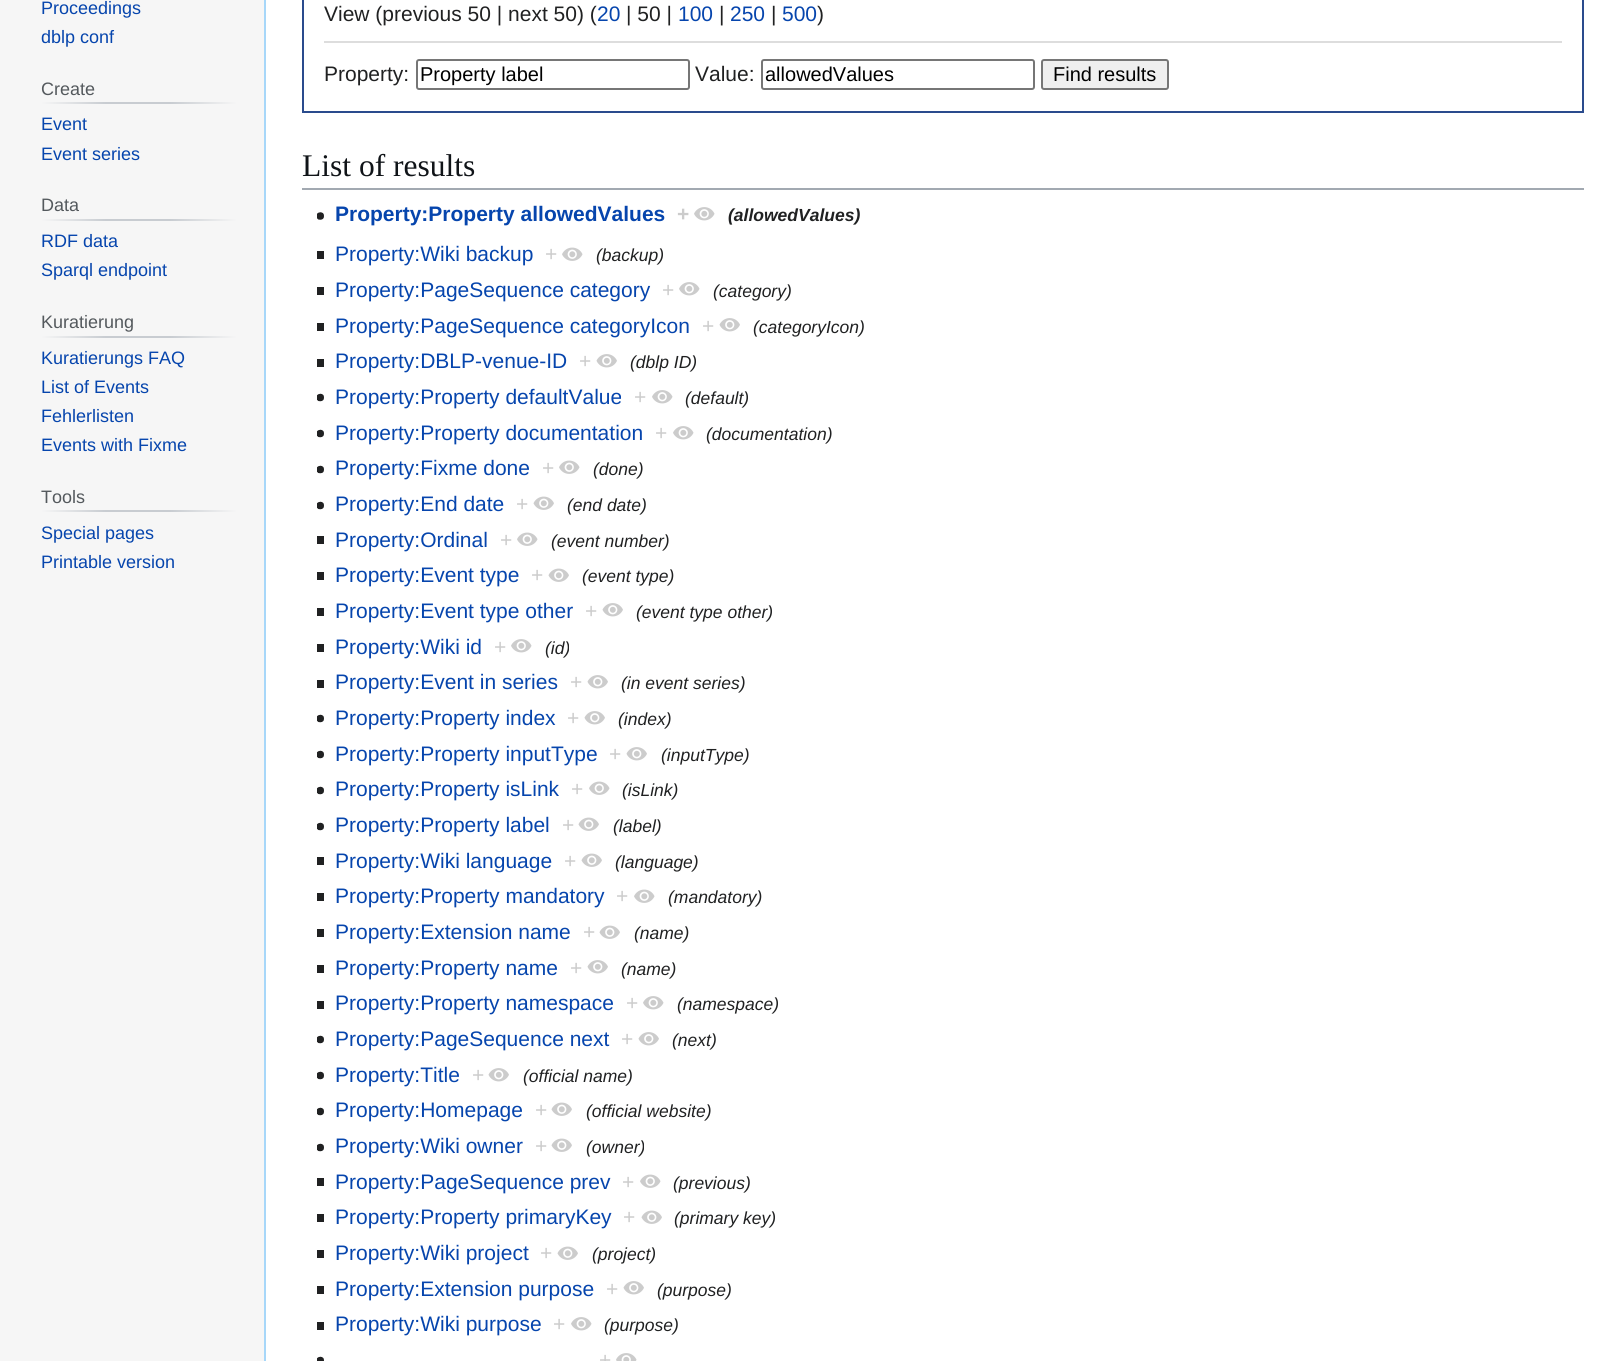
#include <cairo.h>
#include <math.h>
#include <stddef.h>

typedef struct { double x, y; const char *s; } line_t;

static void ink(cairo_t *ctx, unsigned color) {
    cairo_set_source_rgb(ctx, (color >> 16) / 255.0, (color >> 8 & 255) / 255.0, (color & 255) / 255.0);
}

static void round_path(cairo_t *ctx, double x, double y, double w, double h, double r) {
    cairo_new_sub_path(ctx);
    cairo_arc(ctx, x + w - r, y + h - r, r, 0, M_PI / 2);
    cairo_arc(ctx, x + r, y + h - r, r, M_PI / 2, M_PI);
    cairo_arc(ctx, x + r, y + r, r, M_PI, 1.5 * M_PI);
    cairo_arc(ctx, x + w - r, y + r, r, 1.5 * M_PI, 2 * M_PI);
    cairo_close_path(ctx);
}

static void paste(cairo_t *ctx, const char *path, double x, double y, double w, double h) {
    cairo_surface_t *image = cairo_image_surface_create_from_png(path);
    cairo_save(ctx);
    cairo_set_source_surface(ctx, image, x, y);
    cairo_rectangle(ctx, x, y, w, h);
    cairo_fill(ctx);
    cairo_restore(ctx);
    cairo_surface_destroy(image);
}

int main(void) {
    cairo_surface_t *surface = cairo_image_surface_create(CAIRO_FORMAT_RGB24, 1619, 1361);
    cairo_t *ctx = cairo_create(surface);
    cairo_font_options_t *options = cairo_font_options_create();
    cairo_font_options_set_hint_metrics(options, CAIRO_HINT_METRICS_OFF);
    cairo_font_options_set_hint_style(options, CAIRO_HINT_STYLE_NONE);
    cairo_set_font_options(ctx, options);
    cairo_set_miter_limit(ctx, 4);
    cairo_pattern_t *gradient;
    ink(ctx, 0xF6F6F6);
    cairo_paint(ctx);
    cairo_select_font_face(ctx, "Liberation Sans", CAIRO_FONT_SLANT_NORMAL, CAIRO_FONT_WEIGHT_NORMAL);
    cairo_set_font_size(ctx, 18);
    ink(ctx, 0x0645AD);
    cairo_move_to(ctx, 41, 14);
    cairo_show_text(ctx, "Proceedings");
    cairo_move_to(ctx, 41, 43);
    cairo_show_text(ctx, "dblp conf");
    gradient = cairo_pattern_create_linear(41, 103, 237, 103);
    cairo_pattern_add_color_stop_rgba(gradient, 0, 0.965, 0.965, 0.965, 1);
    cairo_pattern_add_color_stop_rgba(gradient, 0.33, 0.784, 0.8, 0.82, 1);
    cairo_pattern_add_color_stop_rgba(gradient, 0.66, 0.784, 0.8, 0.82, 1);
    cairo_pattern_add_color_stop_rgba(gradient, 1, 0.965, 0.965, 0.965, 1);
    cairo_set_source(ctx, gradient);
    cairo_pattern_destroy(gradient);
    cairo_rectangle(ctx, 41, 102, 196, 2);
    cairo_fill(ctx);
    ink(ctx, 0x54595D);
    cairo_move_to(ctx, 41, 95);
    cairo_show_text(ctx, "Create");
    ink(ctx, 0x0645AD);
    cairo_move_to(ctx, 41, 130);
    cairo_show_text(ctx, "Event");
    cairo_move_to(ctx, 41, 160);
    cairo_show_text(ctx, "Event series");
    gradient = cairo_pattern_create_linear(41, 220, 237, 220);
    cairo_pattern_add_color_stop_rgba(gradient, 0, 0.965, 0.965, 0.965, 1);
    cairo_pattern_add_color_stop_rgba(gradient, 0.33, 0.784, 0.8, 0.82, 1);
    cairo_pattern_add_color_stop_rgba(gradient, 0.66, 0.784, 0.8, 0.82, 1);
    cairo_pattern_add_color_stop_rgba(gradient, 1, 0.965, 0.965, 0.965, 1);
    cairo_set_source(ctx, gradient);
    cairo_pattern_destroy(gradient);
    cairo_rectangle(ctx, 41, 219, 196, 2);
    cairo_fill(ctx);
    ink(ctx, 0x54595D);
    cairo_move_to(ctx, 41, 211);
    cairo_show_text(ctx, "Data");
    ink(ctx, 0x0645AD);
    cairo_move_to(ctx, 41, 247);
    cairo_show_text(ctx, "RDF data");
    cairo_move_to(ctx, 41, 276);
    cairo_show_text(ctx, "Sparql endpoint");
    gradient = cairo_pattern_create_linear(41, 337, 237, 337);
    cairo_pattern_add_color_stop_rgba(gradient, 0, 0.965, 0.965, 0.965, 1);
    cairo_pattern_add_color_stop_rgba(gradient, 0.33, 0.784, 0.8, 0.82, 1);
    cairo_pattern_add_color_stop_rgba(gradient, 0.66, 0.784, 0.8, 0.82, 1);
    cairo_pattern_add_color_stop_rgba(gradient, 1, 0.965, 0.965, 0.965, 1);
    cairo_set_source(ctx, gradient);
    cairo_pattern_destroy(gradient);
    cairo_rectangle(ctx, 41, 336, 196, 2);
    cairo_fill(ctx);
    ink(ctx, 0x54595D);
    cairo_move_to(ctx, 41, 328);
    cairo_show_text(ctx, "Kuratierung");
    ink(ctx, 0x0645AD);
    {
        static const line_t items[] = {
            {41, 364, "Kuratierungs FAQ"},
            {41, 393, "List of Events"},
            {41, 422, "Fehlerlisten"},
            {41, 451, "Events with Fixme"},
        };
        for (size_t i = 0; i < sizeof items / sizeof *items; i++) {
            cairo_move_to(ctx, items[i].x, items[i].y);
            cairo_show_text(ctx, items[i].s);
        }
    }
    gradient = cairo_pattern_create_linear(41, 511, 237, 511);
    cairo_pattern_add_color_stop_rgba(gradient, 0, 0.965, 0.965, 0.965, 1);
    cairo_pattern_add_color_stop_rgba(gradient, 0.33, 0.784, 0.8, 0.82, 1);
    cairo_pattern_add_color_stop_rgba(gradient, 0.66, 0.784, 0.8, 0.82, 1);
    cairo_pattern_add_color_stop_rgba(gradient, 1, 0.965, 0.965, 0.965, 1);
    cairo_set_source(ctx, gradient);
    cairo_pattern_destroy(gradient);
    cairo_rectangle(ctx, 41, 510, 196, 2);
    cairo_fill(ctx);
    ink(ctx, 0x54595D);
    cairo_move_to(ctx, 41, 503);
    cairo_show_text(ctx, "Tools");
    ink(ctx, 0x0645AD);
    cairo_move_to(ctx, 41, 539);
    cairo_show_text(ctx, "Special pages");
    cairo_move_to(ctx, 41, 568);
    cairo_show_text(ctx, "Printable version");
    ink(ctx, 0xFFFFFF);
    cairo_rectangle(ctx, 266, 0, 1353, 1361);
    cairo_fill(ctx);
    ink(ctx, 0xA7D7F9);
    cairo_rectangle(ctx, 264, 0, 2, 1361);
    cairo_fill(ctx);
    cairo_rectangle(ctx, 303, -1, 1280, 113);
    ink(ctx, 0x2A4B8D);
    cairo_stroke(ctx);
    cairo_set_font_size(ctx, 21);
    ink(ctx, 0x202122);
    cairo_move_to(ctx, 324, 21);
    cairo_show_text(ctx, "View (previous 50 | next 50) (");
    ink(ctx, 0x0645AD);
    cairo_move_to(ctx, 597, 21);
    cairo_show_text(ctx, "20");
    ink(ctx, 0x202122);
    cairo_move_to(ctx, 626, 21);
    cairo_show_text(ctx, "| 50 |");
    ink(ctx, 0x0645AD);
    cairo_move_to(ctx, 678, 21);
    cairo_show_text(ctx, "100");
    ink(ctx, 0x202122);
    cairo_move_to(ctx, 719, 21);
    cairo_show_text(ctx, "|");
    ink(ctx, 0x0645AD);
    cairo_move_to(ctx, 730, 21);
    cairo_show_text(ctx, "250");
    ink(ctx, 0x202122);
    cairo_move_to(ctx, 771, 21);
    cairo_show_text(ctx, "|");
    ink(ctx, 0x0645AD);
    cairo_move_to(ctx, 782, 21);
    cairo_show_text(ctx, "500");
    ink(ctx, 0x202122);
    cairo_move_to(ctx, 817, 21);
    cairo_show_text(ctx, ")");
    ink(ctx, 0xDDDDDD);
    cairo_rectangle(ctx, 324, 41, 1238, 2);
    cairo_fill(ctx);
    ink(ctx, 0x202122);
    cairo_move_to(ctx, 324, 81);
    cairo_show_text(ctx, "Property:");
    round_path(ctx, 417, 60, 272, 29, 2);
    ink(ctx, 0x767676);
    cairo_stroke(ctx);
    cairo_set_font_size(ctx, 20);
    ink(ctx, 0x000000);
    cairo_move_to(ctx, 420, 81);
    cairo_show_text(ctx, "Property label");
    cairo_set_font_size(ctx, 21);
    ink(ctx, 0x202122);
    cairo_move_to(ctx, 695, 81);
    cairo_show_text(ctx, "Value:");
    round_path(ctx, 762, 60, 272, 29, 2);
    ink(ctx, 0x767676);
    cairo_stroke(ctx);
    cairo_set_font_size(ctx, 20);
    ink(ctx, 0x000000);
    cairo_move_to(ctx, 765, 81);
    cairo_show_text(ctx, "allowedValues");
    ink(ctx, 0xEFEFEF);
    round_path(ctx, 1042, 60, 126, 29, 2);
    cairo_fill_preserve(ctx);
    ink(ctx, 0x767676);
    cairo_stroke(ctx);
    ink(ctx, 0x000000);
    cairo_move_to(ctx, 1053, 81);
    cairo_show_text(ctx, "Find results");
    ink(ctx, 0xA2A9B1);
    cairo_rectangle(ctx, 302, 188, 1282, 2);
    cairo_fill(ctx);
    cairo_select_font_face(ctx, "Liberation Serif", CAIRO_FONT_SLANT_NORMAL, CAIRO_FONT_WEIGHT_NORMAL);
    cairo_set_font_size(ctx, 31.5);
    ink(ctx, 0x101418);
    cairo_move_to(ctx, 302, 176);
    cairo_show_text(ctx, "List of results");
    paste(ctx, "media/1.png", 317, 212, 7, 8);
    cairo_select_font_face(ctx, "Liberation Sans", CAIRO_FONT_SLANT_NORMAL, CAIRO_FONT_WEIGHT_BOLD);
    cairo_set_font_size(ctx, 21);
    ink(ctx, 0x0645AD);
    cairo_move_to(ctx, 335, 221);
    cairo_show_text(ctx, "Property:Property allowedValues");
    ink(ctx, 0xCCCCCC);
    cairo_move_to(ctx, 677, 221);
    cairo_show_text(ctx, "+");
    paste(ctx, "media/2.png", 694, 207, 21, 14);
    cairo_select_font_face(ctx, "Liberation Sans", CAIRO_FONT_SLANT_ITALIC, CAIRO_FONT_WEIGHT_BOLD);
    cairo_set_font_size(ctx, 17.5);
    ink(ctx, 0x202122);
    cairo_move_to(ctx, 728, 221);
    cairo_show_text(ctx, "(allowedValues)");
    cairo_rectangle(ctx, 317, 251, 7, 8);
    cairo_fill(ctx);
    cairo_select_font_face(ctx, "Liberation Sans", CAIRO_FONT_SLANT_NORMAL, CAIRO_FONT_WEIGHT_NORMAL);
    cairo_set_font_size(ctx, 21);
    ink(ctx, 0x0645AD);
    cairo_move_to(ctx, 335, 261);
    cairo_show_text(ctx, "Property:Wiki backup");
    ink(ctx, 0xCCCCCC);
    cairo_move_to(ctx, 545, 261);
    cairo_show_text(ctx, "+");
    paste(ctx, "media/3.png", 562, 247, 21, 14);
    cairo_select_font_face(ctx, "Liberation Sans", CAIRO_FONT_SLANT_ITALIC, CAIRO_FONT_WEIGHT_NORMAL);
    cairo_set_font_size(ctx, 17.5);
    ink(ctx, 0x202122);
    cairo_move_to(ctx, 596, 261);
    cairo_show_text(ctx, "(backup)");
    cairo_rectangle(ctx, 317, 287, 7, 8);
    cairo_fill(ctx);
    cairo_select_font_face(ctx, "Liberation Sans", CAIRO_FONT_SLANT_NORMAL, CAIRO_FONT_WEIGHT_NORMAL);
    cairo_set_font_size(ctx, 21);
    ink(ctx, 0x0645AD);
    cairo_move_to(ctx, 335, 297);
    cairo_show_text(ctx, "Property:PageSequence category");
    ink(ctx, 0xCCCCCC);
    cairo_move_to(ctx, 662, 297);
    cairo_show_text(ctx, "+");
    paste(ctx, "media/2.png", 679, 282, 21, 14);
    cairo_select_font_face(ctx, "Liberation Sans", CAIRO_FONT_SLANT_ITALIC, CAIRO_FONT_WEIGHT_NORMAL);
    cairo_set_font_size(ctx, 17.5);
    ink(ctx, 0x202122);
    cairo_move_to(ctx, 713, 297);
    cairo_show_text(ctx, "(category)");
    cairo_rectangle(ctx, 317, 323, 7, 8);
    cairo_fill(ctx);
    cairo_select_font_face(ctx, "Liberation Sans", CAIRO_FONT_SLANT_NORMAL, CAIRO_FONT_WEIGHT_NORMAL);
    cairo_set_font_size(ctx, 21);
    ink(ctx, 0x0645AD);
    cairo_move_to(ctx, 335, 333);
    cairo_show_text(ctx, "Property:PageSequence categoryIcon");
    ink(ctx, 0xCCCCCC);
    cairo_move_to(ctx, 702, 333);
    cairo_show_text(ctx, "+");
    paste(ctx, "media/4.png", 719, 318, 21, 14);
    cairo_select_font_face(ctx, "Liberation Sans", CAIRO_FONT_SLANT_ITALIC, CAIRO_FONT_WEIGHT_NORMAL);
    cairo_set_font_size(ctx, 17.5);
    ink(ctx, 0x202122);
    cairo_move_to(ctx, 753, 333);
    cairo_show_text(ctx, "(categoryIcon)");
    cairo_rectangle(ctx, 317, 359, 7, 8);
    cairo_fill(ctx);
    cairo_select_font_face(ctx, "Liberation Sans", CAIRO_FONT_SLANT_NORMAL, CAIRO_FONT_WEIGHT_NORMAL);
    cairo_set_font_size(ctx, 21);
    ink(ctx, 0x0645AD);
    cairo_move_to(ctx, 335, 368);
    cairo_show_text(ctx, "Property:DBLP-venue-ID");
    ink(ctx, 0xCCCCCC);
    cairo_move_to(ctx, 579, 368);
    cairo_show_text(ctx, "+");
    paste(ctx, "media/4.png", 596, 354, 21, 14);
    cairo_select_font_face(ctx, "Liberation Sans", CAIRO_FONT_SLANT_ITALIC, CAIRO_FONT_WEIGHT_NORMAL);
    cairo_set_font_size(ctx, 17.5);
    ink(ctx, 0x202122);
    cairo_move_to(ctx, 630, 368);
    cairo_show_text(ctx, "(dblp ID)");
    paste(ctx, "media/5.png", 317, 393, 7, 9);
    cairo_select_font_face(ctx, "Liberation Sans", CAIRO_FONT_SLANT_NORMAL, CAIRO_FONT_WEIGHT_NORMAL);
    cairo_set_font_size(ctx, 21);
    ink(ctx, 0x0645AD);
    cairo_move_to(ctx, 335, 404);
    cairo_show_text(ctx, "Property:Property defaultValue");
    ink(ctx, 0xCCCCCC);
    cairo_move_to(ctx, 634, 404);
    cairo_show_text(ctx, "+");
    paste(ctx, "media/2.png", 652, 390, 21, 14);
    cairo_select_font_face(ctx, "Liberation Sans", CAIRO_FONT_SLANT_ITALIC, CAIRO_FONT_WEIGHT_NORMAL);
    cairo_set_font_size(ctx, 17.5);
    ink(ctx, 0x202122);
    cairo_move_to(ctx, 685, 404);
    cairo_show_text(ctx, "(default)");
    paste(ctx, "media/5.png", 317, 429, 7, 9);
    cairo_select_font_face(ctx, "Liberation Sans", CAIRO_FONT_SLANT_NORMAL, CAIRO_FONT_WEIGHT_NORMAL);
    cairo_set_font_size(ctx, 21);
    ink(ctx, 0x0645AD);
    cairo_move_to(ctx, 335, 440);
    cairo_show_text(ctx, "Property:Property documentation");
    ink(ctx, 0xCCCCCC);
    cairo_move_to(ctx, 655, 440);
    cairo_show_text(ctx, "+");
    paste(ctx, "media/2.png", 673, 426, 21, 14);
    cairo_select_font_face(ctx, "Liberation Sans", CAIRO_FONT_SLANT_ITALIC, CAIRO_FONT_WEIGHT_NORMAL);
    cairo_set_font_size(ctx, 17.5);
    ink(ctx, 0x202122);
    cairo_move_to(ctx, 706, 440);
    cairo_show_text(ctx, "(documentation)");
    paste(ctx, "media/6.png", 317, 465, 7, 9);
    cairo_select_font_face(ctx, "Liberation Sans", CAIRO_FONT_SLANT_NORMAL, CAIRO_FONT_WEIGHT_NORMAL);
    cairo_set_font_size(ctx, 21);
    ink(ctx, 0x0645AD);
    cairo_move_to(ctx, 335, 475);
    cairo_show_text(ctx, "Property:Fixme done");
    ink(ctx, 0xCCCCCC);
    cairo_move_to(ctx, 542, 475);
    cairo_show_text(ctx, "+");
    paste(ctx, "media/3.png", 559, 460, 21, 14);
    cairo_select_font_face(ctx, "Liberation Sans", CAIRO_FONT_SLANT_ITALIC, CAIRO_FONT_WEIGHT_NORMAL);
    cairo_set_font_size(ctx, 17.5);
    ink(ctx, 0x202122);
    cairo_move_to(ctx, 593, 475);
    cairo_show_text(ctx, "(done)");
    paste(ctx, "media/5.png", 317, 501, 7, 9);
    cairo_select_font_face(ctx, "Liberation Sans", CAIRO_FONT_SLANT_NORMAL, CAIRO_FONT_WEIGHT_NORMAL);
    cairo_set_font_size(ctx, 21);
    ink(ctx, 0x0645AD);
    cairo_move_to(ctx, 335, 511);
    cairo_show_text(ctx, "Property:End date");
    ink(ctx, 0xCCCCCC);
    cairo_move_to(ctx, 516, 511);
    cairo_show_text(ctx, "+");
    paste(ctx, "media/7.png", 533, 496, 21, 14);
    cairo_select_font_face(ctx, "Liberation Sans", CAIRO_FONT_SLANT_ITALIC, CAIRO_FONT_WEIGHT_NORMAL);
    cairo_set_font_size(ctx, 17.5);
    ink(ctx, 0x202122);
    cairo_move_to(ctx, 567, 511);
    cairo_show_text(ctx, "(end date)");
    cairo_rectangle(ctx, 317, 536, 7, 8);
    cairo_fill(ctx);
    cairo_select_font_face(ctx, "Liberation Sans", CAIRO_FONT_SLANT_NORMAL, CAIRO_FONT_WEIGHT_NORMAL);
    cairo_set_font_size(ctx, 21);
    ink(ctx, 0x0645AD);
    cairo_move_to(ctx, 335, 547);
    cairo_show_text(ctx, "Property:Ordinal");
    ink(ctx, 0xCCCCCC);
    cairo_move_to(ctx, 500, 547);
    cairo_show_text(ctx, "+");
    paste(ctx, "media/3.png", 517, 532, 21, 14);
    cairo_select_font_face(ctx, "Liberation Sans", CAIRO_FONT_SLANT_ITALIC, CAIRO_FONT_WEIGHT_NORMAL);
    cairo_set_font_size(ctx, 17.5);
    ink(ctx, 0x202122);
    cairo_move_to(ctx, 551, 547);
    cairo_show_text(ctx, "(event number)");
    cairo_rectangle(ctx, 317, 572, 7, 8);
    cairo_fill(ctx);
    cairo_select_font_face(ctx, "Liberation Sans", CAIRO_FONT_SLANT_NORMAL, CAIRO_FONT_WEIGHT_NORMAL);
    cairo_set_font_size(ctx, 21);
    ink(ctx, 0x0645AD);
    cairo_move_to(ctx, 335, 582);
    cairo_show_text(ctx, "Property:Event type");
    ink(ctx, 0xCCCCCC);
    cairo_move_to(ctx, 531, 582);
    cairo_show_text(ctx, "+");
    paste(ctx, "media/7.png", 548, 568, 21, 14);
    cairo_select_font_face(ctx, "Liberation Sans", CAIRO_FONT_SLANT_ITALIC, CAIRO_FONT_WEIGHT_NORMAL);
    cairo_set_font_size(ctx, 17.5);
    ink(ctx, 0x202122);
    cairo_move_to(ctx, 582, 582);
    cairo_show_text(ctx, "(event type)");
    cairo_rectangle(ctx, 317, 608, 7, 8);
    cairo_fill(ctx);
    cairo_select_font_face(ctx, "Liberation Sans", CAIRO_FONT_SLANT_NORMAL, CAIRO_FONT_WEIGHT_NORMAL);
    cairo_set_font_size(ctx, 21);
    ink(ctx, 0x0645AD);
    cairo_move_to(ctx, 335, 618);
    cairo_show_text(ctx, "Property:Event type other");
    ink(ctx, 0xCCCCCC);
    cairo_move_to(ctx, 585, 618);
    cairo_show_text(ctx, "+");
    paste(ctx, "media/4.png", 602, 603, 21, 14);
    cairo_select_font_face(ctx, "Liberation Sans", CAIRO_FONT_SLANT_ITALIC, CAIRO_FONT_WEIGHT_NORMAL);
    cairo_set_font_size(ctx, 17.5);
    ink(ctx, 0x202122);
    cairo_move_to(ctx, 636, 618);
    cairo_show_text(ctx, "(event type other)");
    cairo_rectangle(ctx, 317, 644, 7, 8);
    cairo_fill(ctx);
    cairo_select_font_face(ctx, "Liberation Sans", CAIRO_FONT_SLANT_NORMAL, CAIRO_FONT_WEIGHT_NORMAL);
    cairo_set_font_size(ctx, 21);
    ink(ctx, 0x0645AD);
    cairo_move_to(ctx, 335, 654);
    cairo_show_text(ctx, "Property:Wiki id");
    ink(ctx, 0xCCCCCC);
    cairo_move_to(ctx, 494, 654);
    cairo_show_text(ctx, "+");
    paste(ctx, "media/2.png", 511, 639, 21, 14);
    cairo_select_font_face(ctx, "Liberation Sans", CAIRO_FONT_SLANT_ITALIC, CAIRO_FONT_WEIGHT_NORMAL);
    cairo_set_font_size(ctx, 17.5);
    ink(ctx, 0x202122);
    cairo_move_to(ctx, 545, 654);
    cairo_show_text(ctx, "(id)");
    cairo_rectangle(ctx, 317, 680, 7, 8);
    cairo_fill(ctx);
    cairo_select_font_face(ctx, "Liberation Sans", CAIRO_FONT_SLANT_NORMAL, CAIRO_FONT_WEIGHT_NORMAL);
    cairo_set_font_size(ctx, 21);
    ink(ctx, 0x0645AD);
    cairo_move_to(ctx, 335, 689);
    cairo_show_text(ctx, "Property:Event in series");
    ink(ctx, 0xCCCCCC);
    cairo_move_to(ctx, 570, 689);
    cairo_show_text(ctx, "+");
    paste(ctx, "media/4.png", 587, 675, 21, 14);
    cairo_select_font_face(ctx, "Liberation Sans", CAIRO_FONT_SLANT_ITALIC, CAIRO_FONT_WEIGHT_NORMAL);
    cairo_set_font_size(ctx, 17.5);
    ink(ctx, 0x202122);
    cairo_move_to(ctx, 621, 689);
    cairo_show_text(ctx, "(in event series)");
    paste(ctx, "media/5.png", 317, 714, 7, 9);
    cairo_select_font_face(ctx, "Liberation Sans", CAIRO_FONT_SLANT_NORMAL, CAIRO_FONT_WEIGHT_NORMAL);
    cairo_set_font_size(ctx, 21);
    ink(ctx, 0x0645AD);
    cairo_move_to(ctx, 335, 725);
    cairo_show_text(ctx, "Property:Property index");
    ink(ctx, 0xCCCCCC);
    cairo_move_to(ctx, 567, 725);
    cairo_show_text(ctx, "+");
    paste(ctx, "media/4.png", 584, 711, 21, 14);
    cairo_select_font_face(ctx, "Liberation Sans", CAIRO_FONT_SLANT_ITALIC, CAIRO_FONT_WEIGHT_NORMAL);
    cairo_set_font_size(ctx, 17.5);
    ink(ctx, 0x202122);
    cairo_move_to(ctx, 618, 725);
    cairo_show_text(ctx, "(index)");
    paste(ctx, "media/5.png", 317, 750, 7, 9);
    cairo_select_font_face(ctx, "Liberation Sans", CAIRO_FONT_SLANT_NORMAL, CAIRO_FONT_WEIGHT_NORMAL);
    cairo_set_font_size(ctx, 21);
    ink(ctx, 0x0645AD);
    cairo_move_to(ctx, 335, 761);
    cairo_show_text(ctx, "Property:Property inputType");
    ink(ctx, 0xCCCCCC);
    cairo_move_to(ctx, 609, 761);
    cairo_show_text(ctx, "+");
    paste(ctx, "media/4.png", 626, 747, 21, 14);
    cairo_select_font_face(ctx, "Liberation Sans", CAIRO_FONT_SLANT_ITALIC, CAIRO_FONT_WEIGHT_NORMAL);
    cairo_set_font_size(ctx, 17.5);
    ink(ctx, 0x202122);
    cairo_move_to(ctx, 661, 761);
    cairo_show_text(ctx, "(inputType)");
    paste(ctx, "media/5.png", 317, 786, 7, 9);
    cairo_select_font_face(ctx, "Liberation Sans", CAIRO_FONT_SLANT_NORMAL, CAIRO_FONT_WEIGHT_NORMAL);
    cairo_set_font_size(ctx, 21);
    ink(ctx, 0x0645AD);
    cairo_move_to(ctx, 335, 796);
    cairo_show_text(ctx, "Property:Property isLink");
    ink(ctx, 0xCCCCCC);
    cairo_move_to(ctx, 571, 796);
    cairo_show_text(ctx, "+");
    paste(ctx, "media/3.png", 589, 781, 21, 14);
    cairo_select_font_face(ctx, "Liberation Sans", CAIRO_FONT_SLANT_ITALIC, CAIRO_FONT_WEIGHT_NORMAL);
    cairo_set_font_size(ctx, 17.5);
    ink(ctx, 0x202122);
    cairo_move_to(ctx, 622, 796);
    cairo_show_text(ctx, "(isLink)");
    paste(ctx, "media/5.png", 317, 822, 7, 9);
    cairo_select_font_face(ctx, "Liberation Sans", CAIRO_FONT_SLANT_NORMAL, CAIRO_FONT_WEIGHT_NORMAL);
    cairo_set_font_size(ctx, 21);
    ink(ctx, 0x0645AD);
    cairo_move_to(ctx, 335, 832);
    cairo_show_text(ctx, "Property:Property label");
    ink(ctx, 0xCCCCCC);
    cairo_move_to(ctx, 562, 832);
    cairo_show_text(ctx, "+");
    paste(ctx, "media/7.png", 578, 817, 21, 14);
    cairo_select_font_face(ctx, "Liberation Sans", CAIRO_FONT_SLANT_ITALIC, CAIRO_FONT_WEIGHT_NORMAL);
    cairo_set_font_size(ctx, 17.5);
    ink(ctx, 0x202122);
    cairo_move_to(ctx, 613, 832);
    cairo_show_text(ctx, "(label)");
    cairo_rectangle(ctx, 317, 857, 7, 8);
    cairo_fill(ctx);
    cairo_select_font_face(ctx, "Liberation Sans", CAIRO_FONT_SLANT_NORMAL, CAIRO_FONT_WEIGHT_NORMAL);
    cairo_set_font_size(ctx, 21);
    ink(ctx, 0x0645AD);
    cairo_move_to(ctx, 335, 868);
    cairo_show_text(ctx, "Property:Wiki language");
    ink(ctx, 0xCCCCCC);
    cairo_move_to(ctx, 564, 868);
    cairo_show_text(ctx, "+");
    paste(ctx, "media/7.png", 581, 853, 21, 14);
    cairo_select_font_face(ctx, "Liberation Sans", CAIRO_FONT_SLANT_ITALIC, CAIRO_FONT_WEIGHT_NORMAL);
    cairo_set_font_size(ctx, 17.5);
    ink(ctx, 0x202122);
    cairo_move_to(ctx, 615, 868);
    cairo_show_text(ctx, "(language)");
    cairo_rectangle(ctx, 317, 893, 7, 8);
    cairo_fill(ctx);
    cairo_select_font_face(ctx, "Liberation Sans", CAIRO_FONT_SLANT_NORMAL, CAIRO_FONT_WEIGHT_NORMAL);
    cairo_set_font_size(ctx, 21);
    ink(ctx, 0x0645AD);
    cairo_move_to(ctx, 335, 903);
    cairo_show_text(ctx, "Property:Property mandatory");
    ink(ctx, 0xCCCCCC);
    cairo_move_to(ctx, 616, 903);
    cairo_show_text(ctx, "+");
    paste(ctx, "media/3.png", 634, 889, 21, 14);
    cairo_select_font_face(ctx, "Liberation Sans", CAIRO_FONT_SLANT_ITALIC, CAIRO_FONT_WEIGHT_NORMAL);
    cairo_set_font_size(ctx, 17.5);
    ink(ctx, 0x202122);
    cairo_move_to(ctx, 668, 903);
    cairo_show_text(ctx, "(mandatory)");
    cairo_rectangle(ctx, 317, 929, 7, 8);
    cairo_fill(ctx);
    cairo_select_font_face(ctx, "Liberation Sans", CAIRO_FONT_SLANT_NORMAL, CAIRO_FONT_WEIGHT_NORMAL);
    cairo_set_font_size(ctx, 21);
    ink(ctx, 0x0645AD);
    cairo_move_to(ctx, 335, 939);
    cairo_show_text(ctx, "Property:Extension name");
    ink(ctx, 0xCCCCCC);
    cairo_move_to(ctx, 583, 939);
    cairo_show_text(ctx, "+");
    paste(ctx, "media/7.png", 599, 925, 21, 14);
    cairo_select_font_face(ctx, "Liberation Sans", CAIRO_FONT_SLANT_ITALIC, CAIRO_FONT_WEIGHT_NORMAL);
    cairo_set_font_size(ctx, 17.5);
    ink(ctx, 0x202122);
    cairo_move_to(ctx, 634, 939);
    cairo_show_text(ctx, "(name)");
    cairo_rectangle(ctx, 317, 965, 7, 8);
    cairo_fill(ctx);
    cairo_select_font_face(ctx, "Liberation Sans", CAIRO_FONT_SLANT_NORMAL, CAIRO_FONT_WEIGHT_NORMAL);
    cairo_set_font_size(ctx, 21);
    ink(ctx, 0x0645AD);
    cairo_move_to(ctx, 335, 975);
    cairo_show_text(ctx, "Property:Property name");
    ink(ctx, 0xCCCCCC);
    cairo_move_to(ctx, 570, 975);
    cairo_show_text(ctx, "+");
    paste(ctx, "media/4.png", 587, 960, 21, 14);
    cairo_select_font_face(ctx, "Liberation Sans", CAIRO_FONT_SLANT_ITALIC, CAIRO_FONT_WEIGHT_NORMAL);
    cairo_set_font_size(ctx, 17.5);
    ink(ctx, 0x202122);
    cairo_move_to(ctx, 621, 975);
    cairo_show_text(ctx, "(name)");
    cairo_rectangle(ctx, 317, 1001, 7, 8);
    cairo_fill(ctx);
    cairo_select_font_face(ctx, "Liberation Sans", CAIRO_FONT_SLANT_NORMAL, CAIRO_FONT_WEIGHT_NORMAL);
    cairo_set_font_size(ctx, 21);
    ink(ctx, 0x0645AD);
    cairo_move_to(ctx, 335, 1010);
    cairo_show_text(ctx, "Property:Property namespace");
    ink(ctx, 0xCCCCCC);
    cairo_move_to(ctx, 626, 1010);
    cairo_show_text(ctx, "+");
    paste(ctx, "media/2.png", 643, 996, 21, 14);
    cairo_select_font_face(ctx, "Liberation Sans", CAIRO_FONT_SLANT_ITALIC, CAIRO_FONT_WEIGHT_NORMAL);
    cairo_set_font_size(ctx, 17.5);
    ink(ctx, 0x202122);
    cairo_move_to(ctx, 677, 1010);
    cairo_show_text(ctx, "(namespace)");
    paste(ctx, "media/5.png", 317, 1035, 7, 9);
    cairo_select_font_face(ctx, "Liberation Sans", CAIRO_FONT_SLANT_NORMAL, CAIRO_FONT_WEIGHT_NORMAL);
    cairo_set_font_size(ctx, 21);
    ink(ctx, 0x0645AD);
    cairo_move_to(ctx, 335, 1046);
    cairo_show_text(ctx, "Property:PageSequence next");
    ink(ctx, 0xCCCCCC);
    cairo_move_to(ctx, 621, 1046);
    cairo_show_text(ctx, "+");
    paste(ctx, "media/4.png", 638, 1032, 21, 14);
    cairo_select_font_face(ctx, "Liberation Sans", CAIRO_FONT_SLANT_ITALIC, CAIRO_FONT_WEIGHT_NORMAL);
    cairo_set_font_size(ctx, 17.5);
    ink(ctx, 0x202122);
    cairo_move_to(ctx, 672, 1046);
    cairo_show_text(ctx, "(next)");
    paste(ctx, "media/5.png", 317, 1071, 7, 9);
    cairo_select_font_face(ctx, "Liberation Sans", CAIRO_FONT_SLANT_NORMAL, CAIRO_FONT_WEIGHT_NORMAL);
    cairo_set_font_size(ctx, 21);
    ink(ctx, 0x0645AD);
    cairo_move_to(ctx, 335, 1082);
    cairo_show_text(ctx, "Property:Title");
    ink(ctx, 0xCCCCCC);
    cairo_move_to(ctx, 472, 1082);
    cairo_show_text(ctx, "+");
    paste(ctx, "media/4.png", 488, 1068, 21, 14);
    cairo_select_font_face(ctx, "Liberation Sans", CAIRO_FONT_SLANT_ITALIC, CAIRO_FONT_WEIGHT_NORMAL);
    cairo_set_font_size(ctx, 17.5);
    ink(ctx, 0x202122);
    cairo_move_to(ctx, 523, 1082);
    cairo_show_text(ctx, "(official name)");
    paste(ctx, "media/5.png", 317, 1107, 7, 9);
    cairo_select_font_face(ctx, "Liberation Sans", CAIRO_FONT_SLANT_NORMAL, CAIRO_FONT_WEIGHT_NORMAL);
    cairo_set_font_size(ctx, 21);
    ink(ctx, 0x0645AD);
    cairo_move_to(ctx, 335, 1117);
    cairo_show_text(ctx, "Property:Homepage");
    ink(ctx, 0xCCCCCC);
    cairo_move_to(ctx, 535, 1117);
    cairo_show_text(ctx, "+");
    paste(ctx, "media/7.png", 551, 1102, 21, 14);
    cairo_select_font_face(ctx, "Liberation Sans", CAIRO_FONT_SLANT_ITALIC, CAIRO_FONT_WEIGHT_NORMAL);
    cairo_set_font_size(ctx, 17.5);
    ink(ctx, 0x202122);
    cairo_move_to(ctx, 586, 1117);
    cairo_show_text(ctx, "(official website)");
    paste(ctx, "media/5.png", 317, 1143, 7, 9);
    cairo_select_font_face(ctx, "Liberation Sans", CAIRO_FONT_SLANT_NORMAL, CAIRO_FONT_WEIGHT_NORMAL);
    cairo_set_font_size(ctx, 21);
    ink(ctx, 0x0645AD);
    cairo_move_to(ctx, 335, 1153);
    cairo_show_text(ctx, "Property:Wiki owner");
    ink(ctx, 0xCCCCCC);
    cairo_move_to(ctx, 535, 1153);
    cairo_show_text(ctx, "+");
    paste(ctx, "media/7.png", 551, 1138, 21, 14);
    cairo_select_font_face(ctx, "Liberation Sans", CAIRO_FONT_SLANT_ITALIC, CAIRO_FONT_WEIGHT_NORMAL);
    cairo_set_font_size(ctx, 17.5);
    ink(ctx, 0x202122);
    cairo_move_to(ctx, 586, 1153);
    cairo_show_text(ctx, "(owner)");
    cairo_rectangle(ctx, 317, 1178, 7, 8);
    cairo_fill(ctx);
    cairo_select_font_face(ctx, "Liberation Sans", CAIRO_FONT_SLANT_NORMAL, CAIRO_FONT_WEIGHT_NORMAL);
    cairo_set_font_size(ctx, 21);
    ink(ctx, 0x0645AD);
    cairo_move_to(ctx, 335, 1189);
    cairo_show_text(ctx, "Property:PageSequence prev");
    ink(ctx, 0xCCCCCC);
    cairo_move_to(ctx, 622, 1189);
    cairo_show_text(ctx, "+");
    paste(ctx, "media/3.png", 640, 1174, 21, 14);
    cairo_select_font_face(ctx, "Liberation Sans", CAIRO_FONT_SLANT_ITALIC, CAIRO_FONT_WEIGHT_NORMAL);
    cairo_set_font_size(ctx, 17.5);
    ink(ctx, 0x202122);
    cairo_move_to(ctx, 673, 1189);
    cairo_show_text(ctx, "(previous)");
    cairo_rectangle(ctx, 317, 1214, 7, 8);
    cairo_fill(ctx);
    cairo_select_font_face(ctx, "Liberation Sans", CAIRO_FONT_SLANT_NORMAL, CAIRO_FONT_WEIGHT_NORMAL);
    cairo_set_font_size(ctx, 21);
    ink(ctx, 0x0645AD);
    cairo_move_to(ctx, 335, 1224);
    cairo_show_text(ctx, "Property:Property primaryKey");
    ink(ctx, 0xCCCCCC);
    cairo_move_to(ctx, 623, 1224);
    cairo_show_text(ctx, "+");
    paste(ctx, "media/7.png", 641, 1210, 21, 14);
    cairo_select_font_face(ctx, "Liberation Sans", CAIRO_FONT_SLANT_ITALIC, CAIRO_FONT_WEIGHT_NORMAL);
    cairo_set_font_size(ctx, 17.5);
    ink(ctx, 0x202122);
    cairo_move_to(ctx, 674, 1224);
    cairo_show_text(ctx, "(primary key)");
    cairo_rectangle(ctx, 317, 1250, 7, 8);
    cairo_fill(ctx);
    cairo_select_font_face(ctx, "Liberation Sans", CAIRO_FONT_SLANT_NORMAL, CAIRO_FONT_WEIGHT_NORMAL);
    cairo_set_font_size(ctx, 21);
    ink(ctx, 0x0645AD);
    cairo_move_to(ctx, 335, 1260);
    cairo_show_text(ctx, "Property:Wiki project");
    ink(ctx, 0xCCCCCC);
    cairo_move_to(ctx, 540, 1260);
    cairo_show_text(ctx, "+");
    paste(ctx, "media/7.png", 557, 1246, 21, 14);
    cairo_select_font_face(ctx, "Liberation Sans", CAIRO_FONT_SLANT_ITALIC, CAIRO_FONT_WEIGHT_NORMAL);
    cairo_set_font_size(ctx, 17.5);
    ink(ctx, 0x202122);
    cairo_move_to(ctx, 592, 1260);
    cairo_show_text(ctx, "(project)");
    cairo_rectangle(ctx, 317, 1286, 7, 8);
    cairo_fill(ctx);
    cairo_select_font_face(ctx, "Liberation Sans", CAIRO_FONT_SLANT_NORMAL, CAIRO_FONT_WEIGHT_NORMAL);
    cairo_set_font_size(ctx, 21);
    ink(ctx, 0x0645AD);
    cairo_move_to(ctx, 335, 1296);
    cairo_show_text(ctx, "Property:Extension purpose");
    ink(ctx, 0xCCCCCC);
    cairo_move_to(ctx, 606, 1296);
    cairo_show_text(ctx, "+");
    paste(ctx, "media/4.png", 623, 1281, 21, 14);
    cairo_select_font_face(ctx, "Liberation Sans", CAIRO_FONT_SLANT_ITALIC, CAIRO_FONT_WEIGHT_NORMAL);
    cairo_set_font_size(ctx, 17.5);
    ink(ctx, 0x202122);
    cairo_move_to(ctx, 657, 1296);
    cairo_show_text(ctx, "(purpose)");
    cairo_rectangle(ctx, 317, 1322, 7, 8);
    cairo_fill(ctx);
    cairo_select_font_face(ctx, "Liberation Sans", CAIRO_FONT_SLANT_NORMAL, CAIRO_FONT_WEIGHT_NORMAL);
    cairo_set_font_size(ctx, 21);
    ink(ctx, 0x0645AD);
    cairo_move_to(ctx, 335, 1331);
    cairo_show_text(ctx, "Property:Wiki purpose");
    ink(ctx, 0xCCCCCC);
    cairo_move_to(ctx, 553, 1331);
    cairo_show_text(ctx, "+");
    paste(ctx, "media/2.png", 571, 1317, 21, 14);
    cairo_select_font_face(ctx, "Liberation Sans", CAIRO_FONT_SLANT_ITALIC, CAIRO_FONT_WEIGHT_NORMAL);
    cairo_set_font_size(ctx, 17.5);
    ink(ctx, 0x202122);
    cairo_move_to(ctx, 604, 1331);
    cairo_show_text(ctx, "(purpose)");
    paste(ctx, "media/8.png", 317, 1356, 7, 5);
    cairo_select_font_face(ctx, "Liberation Sans", CAIRO_FONT_SLANT_NORMAL, CAIRO_FONT_WEIGHT_NORMAL);
    cairo_set_font_size(ctx, 21);
    ink(ctx, 0xCCCCCC);
    cairo_move_to(ctx, 599, 1367);
    cairo_show_text(ctx, "+");
    paste(ctx, "media/9.png", 616, 1353, 21, 8);
    cairo_surface_write_to_png(surface, "image.png");
    cairo_font_options_destroy(options);
    cairo_destroy(ctx);
    cairo_surface_destroy(surface);
    return 0;
}
